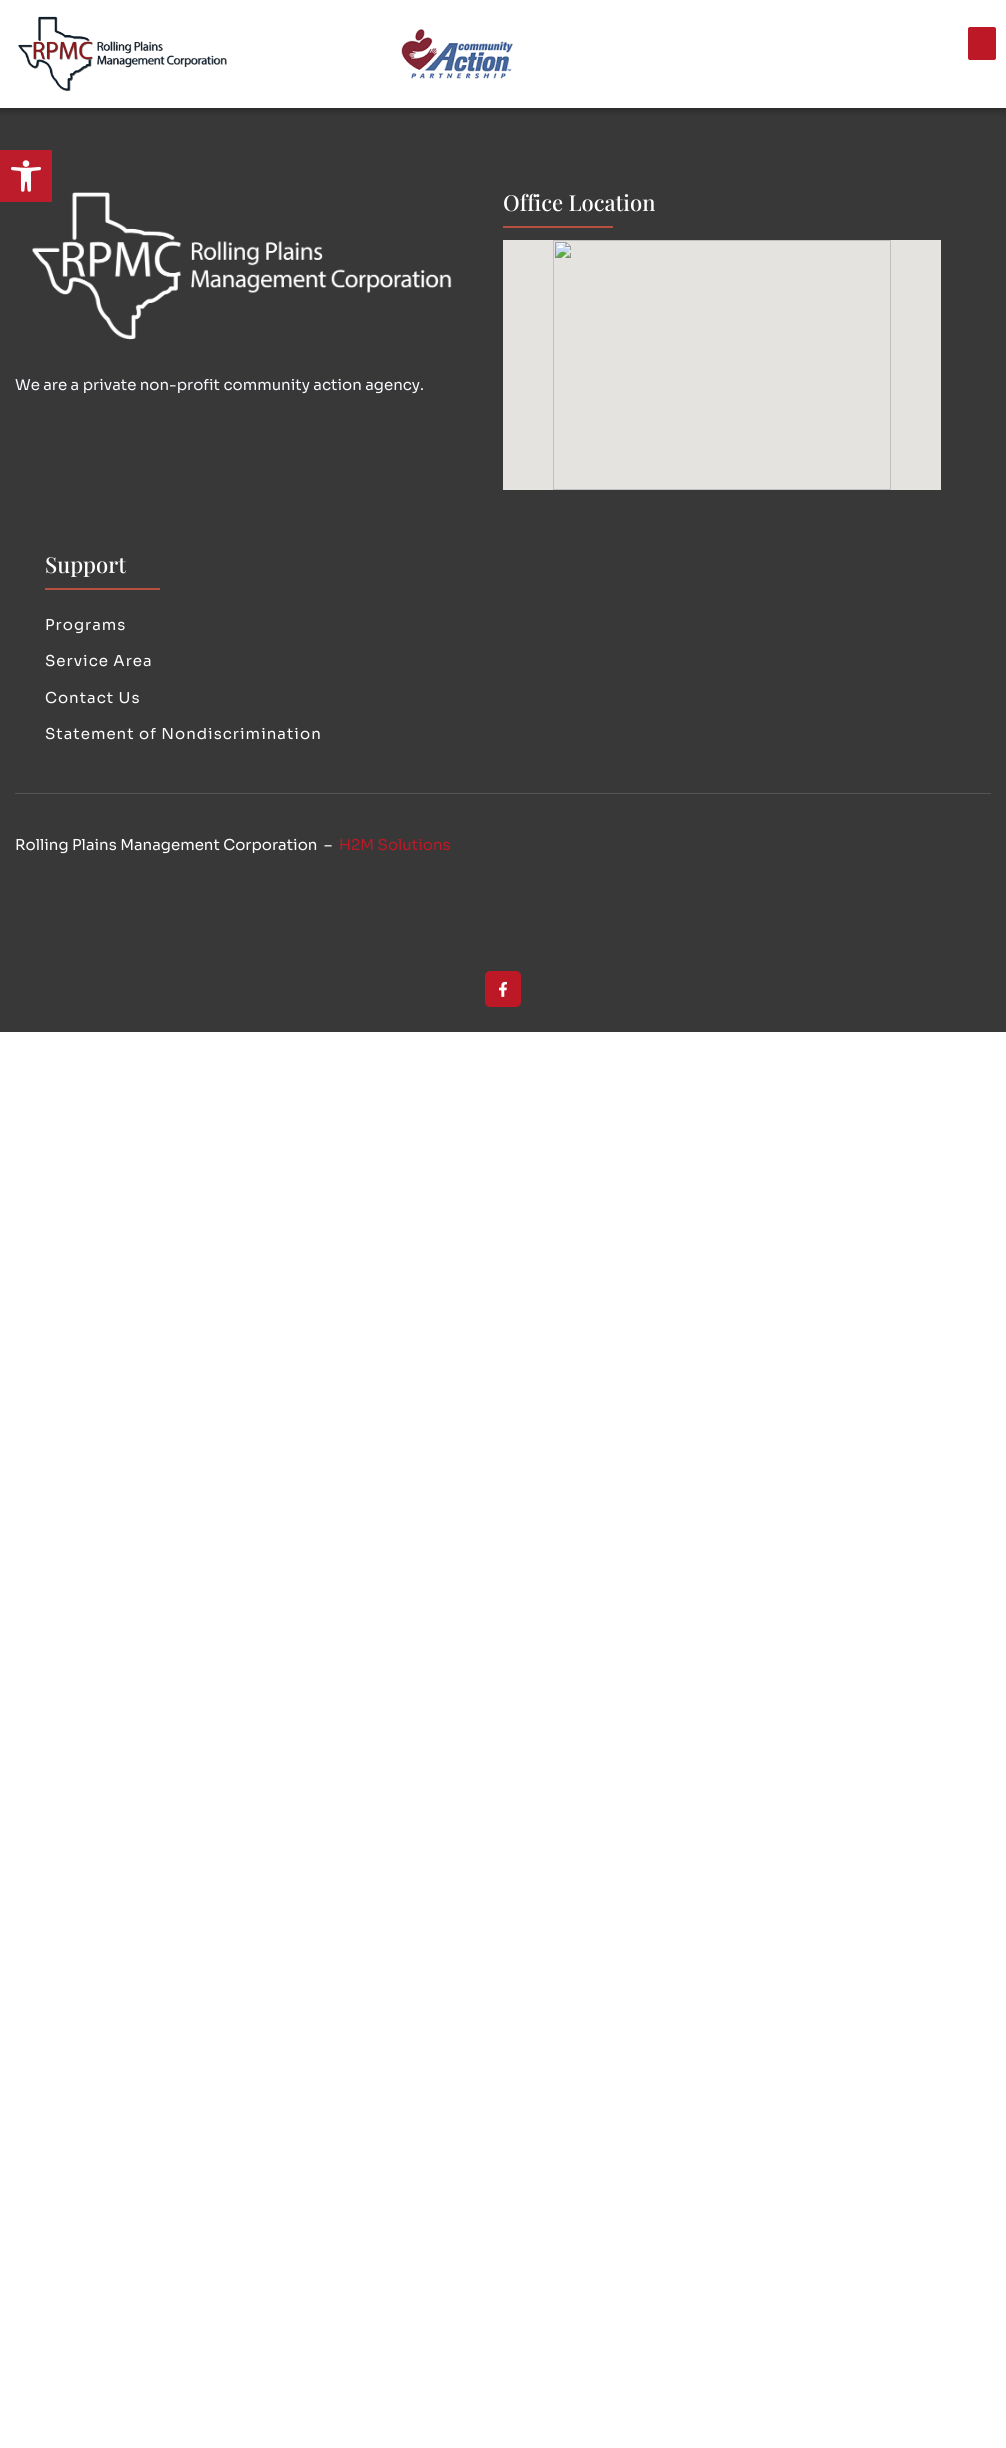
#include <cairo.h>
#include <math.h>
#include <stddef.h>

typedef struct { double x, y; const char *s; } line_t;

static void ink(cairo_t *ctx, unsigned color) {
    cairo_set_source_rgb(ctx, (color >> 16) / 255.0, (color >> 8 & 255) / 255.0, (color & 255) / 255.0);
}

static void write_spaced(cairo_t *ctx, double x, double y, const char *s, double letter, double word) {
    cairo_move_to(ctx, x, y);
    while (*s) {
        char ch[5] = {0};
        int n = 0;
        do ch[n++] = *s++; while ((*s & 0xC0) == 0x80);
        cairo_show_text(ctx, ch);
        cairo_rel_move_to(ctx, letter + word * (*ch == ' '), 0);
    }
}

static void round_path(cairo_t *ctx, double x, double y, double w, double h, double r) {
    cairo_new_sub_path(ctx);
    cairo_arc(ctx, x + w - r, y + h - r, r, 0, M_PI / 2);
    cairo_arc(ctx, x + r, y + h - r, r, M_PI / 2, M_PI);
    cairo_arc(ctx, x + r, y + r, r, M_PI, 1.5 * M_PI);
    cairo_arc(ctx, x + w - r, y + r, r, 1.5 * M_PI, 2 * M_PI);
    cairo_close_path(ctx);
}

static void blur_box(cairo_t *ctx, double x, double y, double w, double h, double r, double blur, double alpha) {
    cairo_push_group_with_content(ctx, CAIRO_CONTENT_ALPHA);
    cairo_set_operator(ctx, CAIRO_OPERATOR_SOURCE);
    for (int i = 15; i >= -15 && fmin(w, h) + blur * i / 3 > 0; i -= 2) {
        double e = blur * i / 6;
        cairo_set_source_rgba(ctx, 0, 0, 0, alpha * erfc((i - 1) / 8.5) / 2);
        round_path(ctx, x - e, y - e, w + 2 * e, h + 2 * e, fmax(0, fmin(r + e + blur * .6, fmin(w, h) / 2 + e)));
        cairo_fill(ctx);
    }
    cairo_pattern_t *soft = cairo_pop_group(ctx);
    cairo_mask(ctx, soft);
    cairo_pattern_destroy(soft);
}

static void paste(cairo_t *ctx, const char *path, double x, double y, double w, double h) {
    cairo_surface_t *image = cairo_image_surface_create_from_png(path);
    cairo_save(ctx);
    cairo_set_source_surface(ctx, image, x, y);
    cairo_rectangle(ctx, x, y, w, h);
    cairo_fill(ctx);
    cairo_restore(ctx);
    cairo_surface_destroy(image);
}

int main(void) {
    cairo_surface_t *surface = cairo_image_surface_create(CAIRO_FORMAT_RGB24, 1006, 2448);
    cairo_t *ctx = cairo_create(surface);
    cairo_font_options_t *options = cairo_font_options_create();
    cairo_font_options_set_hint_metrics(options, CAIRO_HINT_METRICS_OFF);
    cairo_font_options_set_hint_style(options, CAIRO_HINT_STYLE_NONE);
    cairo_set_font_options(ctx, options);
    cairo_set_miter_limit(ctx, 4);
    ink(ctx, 0xFFFFFF);
    cairo_paint(ctx);
    ink(ctx, 0x383838);
    cairo_rectangle(ctx, 0, 108, 1006, 924);
    cairo_fill(ctx);
    cairo_save(ctx);
    cairo_rectangle(ctx, 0, 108, 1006, 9);
    cairo_clip(ctx);
    ink(ctx, 0x000000);
    blur_box(ctx, 0, 0, 1006, 108, 0, 5, 0.5);
    cairo_restore(ctx);
    paste(ctx, "media/1.png", 18, 16, 209, 76);
    paste(ctx, "media/2.png", 401, 29, 112, 50);
    ink(ctx, 0xBC1826);
    round_path(ctx, 968, 27, 28, 33, 2);
    cairo_fill(ctx);
    paste(ctx, "media/5.png", 31, 192, 421, 148);
    ink(ctx, 0xBD1C2A);
    cairo_rectangle(ctx, 0, 150, 52, 52);
    cairo_fill(ctx);
    paste(ctx, "media/3.png", 11, 160, 30, 32);
    cairo_select_font_face(ctx, "Playfair Display Medium", CAIRO_FONT_SLANT_NORMAL, CAIRO_FONT_WEIGHT_NORMAL);
    cairo_set_font_size(ctx, 22);
    ink(ctx, 0xFFFFFF);
    cairo_move_to(ctx, 503, 211);
    cairo_show_text(ctx, "Office Location");
    ink(ctx, 0xB85040);
    cairo_rectangle(ctx, 503, 226, 110, 2);
    cairo_fill(ctx);
    paste(ctx, "media/4.png", 503, 240, 438, 250);
    cairo_select_font_face(ctx, "Sora", CAIRO_FONT_SLANT_NORMAL, CAIRO_FONT_WEIGHT_NORMAL);
    cairo_set_font_size(ctx, 15);
    ink(ctx, 0xF8FAFF);
    cairo_move_to(ctx, 15, 390);
    cairo_show_text(ctx, "We are a private non-profit community action agency.");
    cairo_select_font_face(ctx, "Playfair Display Medium", CAIRO_FONT_SLANT_NORMAL, CAIRO_FONT_WEIGHT_NORMAL);
    cairo_set_font_size(ctx, 22);
    ink(ctx, 0xFFFFFF);
    cairo_move_to(ctx, 45, 573);
    cairo_show_text(ctx, "Support");
    ink(ctx, 0xB85040);
    cairo_rectangle(ctx, 45, 588, 115, 2);
    cairo_fill(ctx);
    cairo_select_font_face(ctx, "Sora", CAIRO_FONT_SLANT_NORMAL, CAIRO_FONT_WEIGHT_NORMAL);
    cairo_set_font_size(ctx, 15);
    ink(ctx, 0xFFFFFF);
    {
        static const line_t items[] = {
            {45, 630, "Programs"},
            {45, 666, "Service Area"},
            {45, 703, "Contact Us"},
            {45, 739, "Statement of Nondiscrimination"},
        };
        for (size_t i = 0; i < sizeof items / sizeof *items; i++) {
            write_spaced(ctx, items[i].x, items[i].y, items[i].s, 1, 0);
        }
    }
    ink(ctx, 0x545454);
    cairo_rectangle(ctx, 15, 793, 976, 1);
    cairo_fill(ctx);
    ink(ctx, 0xFFFFFF);
    cairo_move_to(ctx, 15, 850);
    cairo_show_text(ctx, "Rolling Plains Management Corporation  –");
    ink(ctx, 0xBC1826);
    cairo_move_to(ctx, 339, 850);
    cairo_show_text(ctx, "H2M Solutions");
    round_path(ctx, 485, 971, 36, 36, 5);
    cairo_fill(ctx);
    paste(ctx, "media/6.png", 499, 981, 8, 16);
    cairo_surface_write_to_png(surface, "image.png");
    cairo_font_options_destroy(options);
    cairo_destroy(ctx);
    cairo_surface_destroy(surface);
    return 0;
}
